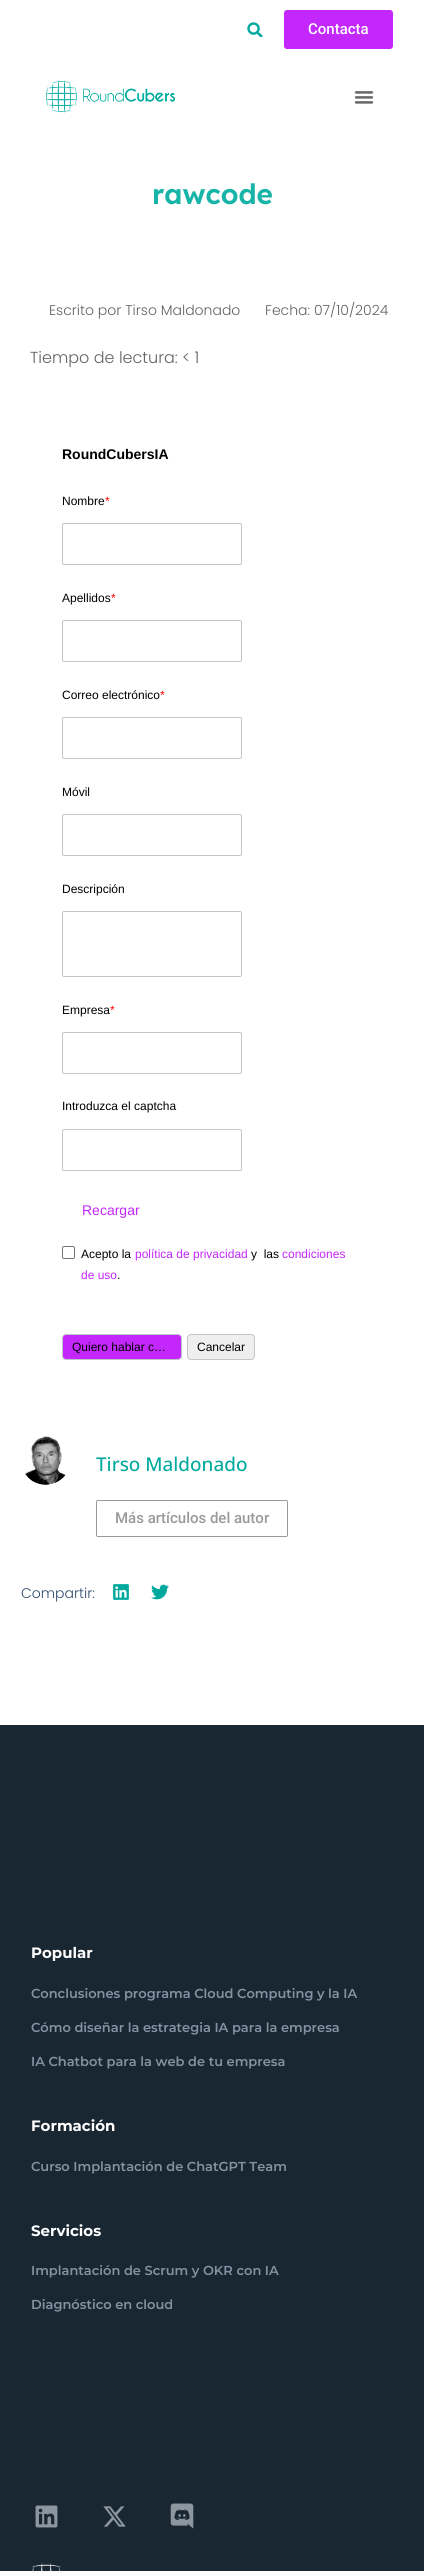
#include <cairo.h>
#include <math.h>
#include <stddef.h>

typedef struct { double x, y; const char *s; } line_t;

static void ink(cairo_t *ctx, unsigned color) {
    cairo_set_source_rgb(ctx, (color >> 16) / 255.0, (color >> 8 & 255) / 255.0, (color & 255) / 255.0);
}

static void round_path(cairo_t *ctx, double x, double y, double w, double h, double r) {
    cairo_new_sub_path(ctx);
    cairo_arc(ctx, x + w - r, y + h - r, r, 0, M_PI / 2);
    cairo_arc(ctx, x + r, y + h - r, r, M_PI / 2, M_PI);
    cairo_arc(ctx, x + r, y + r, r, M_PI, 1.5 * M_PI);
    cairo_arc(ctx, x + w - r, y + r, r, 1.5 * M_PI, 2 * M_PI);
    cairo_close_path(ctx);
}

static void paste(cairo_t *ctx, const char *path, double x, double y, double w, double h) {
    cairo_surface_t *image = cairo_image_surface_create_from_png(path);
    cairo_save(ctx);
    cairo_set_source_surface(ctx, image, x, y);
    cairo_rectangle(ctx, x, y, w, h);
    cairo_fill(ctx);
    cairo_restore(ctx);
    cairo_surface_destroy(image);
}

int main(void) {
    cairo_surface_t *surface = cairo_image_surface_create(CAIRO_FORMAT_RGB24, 424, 2571);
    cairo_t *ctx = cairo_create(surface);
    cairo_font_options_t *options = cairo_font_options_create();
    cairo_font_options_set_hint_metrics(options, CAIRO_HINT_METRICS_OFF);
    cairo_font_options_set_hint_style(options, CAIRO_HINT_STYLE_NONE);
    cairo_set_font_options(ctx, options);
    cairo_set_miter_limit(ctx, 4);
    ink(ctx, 0xFFFFFF);
    cairo_paint(ctx);
    paste(ctx, "media/1.png", 247, 22, 16, 15);
    ink(ctx, 0xC427FC);
    round_path(ctx, 284, 10, 109, 39, 3);
    cairo_fill(ctx);
    cairo_select_font_face(ctx, "Roboto Medium", CAIRO_FONT_SLANT_NORMAL, CAIRO_FONT_WEIGHT_NORMAL);
    cairo_set_font_size(ctx, 15);
    ink(ctx, 0xFFFFFF);
    cairo_move_to(ctx, 308, 34);
    cairo_show_text(ctx, "Contacta");
    paste(ctx, "media/2.png", 45, 80, 130, 33);
    paste(ctx, "media/3.png", 354, 91, 20, 13);
    cairo_select_font_face(ctx, "Lexend Deca SemiBold", CAIRO_FONT_SLANT_NORMAL, CAIRO_FONT_WEIGHT_NORMAL);
    cairo_set_font_size(ctx, 28);
    ink(ctx, 0x18B4A7);
    cairo_move_to(ctx, 152, 204);
    cairo_show_text(ctx, "rawcode");
    cairo_select_font_face(ctx, "Poppins Light", CAIRO_FONT_SLANT_NORMAL, CAIRO_FONT_WEIGHT_NORMAL);
    cairo_set_font_size(ctx, 14);
    ink(ctx, 0x636363);
    cairo_move_to(ctx, 49, 315);
    cairo_show_text(ctx, "Escrito por Tirso Maldonado");
    cairo_move_to(ctx, 265, 315);
    cairo_show_text(ctx, "Fecha: 07/10/2024");
    cairo_set_font_size(ctx, 16);
    cairo_move_to(ctx, 30, 363);
    cairo_show_text(ctx, "Tiempo de lectura: < 1");
    cairo_select_font_face(ctx, "Liberation Sans", CAIRO_FONT_SLANT_NORMAL, CAIRO_FONT_WEIGHT_BOLD);
    cairo_set_font_size(ctx, 14);
    ink(ctx, 0x000000);
    cairo_move_to(ctx, 62, 459);
    cairo_show_text(ctx, "RoundCubersIA");
    cairo_select_font_face(ctx, "Liberation Sans", CAIRO_FONT_SLANT_NORMAL, CAIRO_FONT_WEIGHT_NORMAL);
    cairo_set_font_size(ctx, 12);
    cairo_move_to(ctx, 62, 505);
    cairo_show_text(ctx, "Nombre");
    ink(ctx, 0xFF0000);
    cairo_move_to(ctx, 105, 505);
    cairo_show_text(ctx, "*");
    round_path(ctx, 62.5, 523.5, 179, 41, 1.5);
    ink(ctx, 0xC0C6CC);
    cairo_set_line_width(ctx, 1);
    cairo_stroke(ctx);
    ink(ctx, 0x000000);
    cairo_move_to(ctx, 62, 602);
    cairo_show_text(ctx, "Apellidos");
    ink(ctx, 0xFF0000);
    cairo_move_to(ctx, 111, 602);
    cairo_show_text(ctx, "*");
    round_path(ctx, 62.5, 620.5, 179, 41, 1.5);
    ink(ctx, 0xC0C6CC);
    cairo_stroke(ctx);
    ink(ctx, 0x000000);
    cairo_move_to(ctx, 62, 699);
    cairo_show_text(ctx, "Correo electrónico");
    ink(ctx, 0xFF0000);
    cairo_move_to(ctx, 160, 699);
    cairo_show_text(ctx, "*");
    round_path(ctx, 62.5, 717.5, 179, 41, 1.5);
    ink(ctx, 0xC0C6CC);
    cairo_stroke(ctx);
    ink(ctx, 0x000000);
    cairo_move_to(ctx, 62, 796);
    cairo_show_text(ctx, "Móvil");
    round_path(ctx, 62.5, 814.5, 179, 41, 1.5);
    ink(ctx, 0xC0C6CC);
    cairo_stroke(ctx);
    ink(ctx, 0x000000);
    cairo_move_to(ctx, 62, 893);
    cairo_show_text(ctx, "Descripción");
    round_path(ctx, 62.5, 911.5, 179, 65, 1.5);
    ink(ctx, 0xC0C6CC);
    cairo_stroke(ctx);
    ink(ctx, 0x000000);
    cairo_move_to(ctx, 62, 1014);
    cairo_show_text(ctx, "Empresa");
    ink(ctx, 0xFF0000);
    cairo_move_to(ctx, 110, 1014);
    cairo_show_text(ctx, "*");
    round_path(ctx, 62.5, 1032.5, 179, 41, 1.5);
    ink(ctx, 0xC0C6CC);
    cairo_stroke(ctx);
    ink(ctx, 0x000000);
    cairo_move_to(ctx, 62, 1110);
    cairo_show_text(ctx, "Introduzca el captcha");
    round_path(ctx, 62.5, 1129.5, 179, 41, 1.5);
    ink(ctx, 0xC0C6CC);
    cairo_stroke(ctx);
    cairo_set_font_size(ctx, 14);
    ink(ctx, 0xC427FC);
    cairo_move_to(ctx, 82, 1215);
    cairo_show_text(ctx, "Recargar");
    round_path(ctx, 62.5, 1246.5, 12, 12, 1.5);
    ink(ctx, 0x767676);
    cairo_stroke(ctx);
    cairo_set_font_size(ctx, 12);
    ink(ctx, 0x000000);
    cairo_move_to(ctx, 81, 1258);
    cairo_show_text(ctx, "Acepto la");
    ink(ctx, 0xC427FC);
    cairo_move_to(ctx, 135, 1258);
    cairo_show_text(ctx, "política de privacidad");
    ink(ctx, 0x000000);
    cairo_move_to(ctx, 251, 1258);
    cairo_show_text(ctx, "y  las");
    ink(ctx, 0xC427FC);
    cairo_move_to(ctx, 282, 1258);
    cairo_show_text(ctx, "condiciones");
    cairo_move_to(ctx, 81, 1279);
    cairo_show_text(ctx, "de uso");
    ink(ctx, 0x000000);
    cairo_move_to(ctx, 117, 1279);
    cairo_show_text(ctx, ".");
    ink(ctx, 0xC427FC);
    round_path(ctx, 62.5, 1334.5, 119, 25, 3.5);
    cairo_fill_preserve(ctx);
    ink(ctx, 0xC0C6CC);
    cairo_stroke(ctx);
    ink(ctx, 0x000000);
    cairo_move_to(ctx, 72, 1351);
    cairo_show_text(ctx, "Quiero hablar c…");
    ink(ctx, 0xEFEFEF);
    round_path(ctx, 187.5, 1334.5, 67, 25, 3.5);
    cairo_fill_preserve(ctx);
    ink(ctx, 0xC0C6CC);
    cairo_stroke(ctx);
    ink(ctx, 0x000000);
    cairo_move_to(ctx, 197, 1351);
    cairo_show_text(ctx, "Cancelar");
    paste(ctx, "media/4.png", 25, 1436, 41, 49);
    cairo_select_font_face(ctx, "Open Sans Medium", CAIRO_FONT_SLANT_NORMAL, CAIRO_FONT_WEIGHT_NORMAL);
    cairo_set_font_size(ctx, 19);
    ink(ctx, 0x00A99D);
    cairo_move_to(ctx, 96, 1471);
    cairo_show_text(ctx, "Tirso Maldonado");
    round_path(ctx, 96.5, 1500.5, 191, 36, 1.5);
    ink(ctx, 0x999999);
    cairo_stroke(ctx);
    cairo_select_font_face(ctx, "Roboto Medium", CAIRO_FONT_SLANT_NORMAL, CAIRO_FONT_WEIGHT_NORMAL);
    cairo_set_font_size(ctx, 15);
    cairo_move_to(ctx, 115, 1523);
    cairo_show_text(ctx, "Más artículos del autor");
    cairo_select_font_face(ctx, "Poppins Light", CAIRO_FONT_SLANT_NORMAL, CAIRO_FONT_WEIGHT_NORMAL);
    cairo_set_font_size(ctx, 14);
    ink(ctx, 0x324A6D);
    cairo_move_to(ctx, 21, 1598);
    cairo_show_text(ctx, "Compartir:");
    paste(ctx, "media/5.png", 113, 1584, 16, 16);
    paste(ctx, "media/6.png", 151, 1584, 18, 16);
    ink(ctx, 0x192733);
    cairo_rectangle(ctx, 0, 1725, 424, 846);
    cairo_fill(ctx);
    cairo_select_font_face(ctx, "Montserrat", CAIRO_FONT_SLANT_NORMAL, CAIRO_FONT_WEIGHT_BOLD);
    cairo_set_font_size(ctx, 15);
    ink(ctx, 0xFFFFFF);
    cairo_move_to(ctx, 31, 1958);
    cairo_show_text(ctx, "Popular");
    cairo_select_font_face(ctx, "Montserrat SemiBold", CAIRO_FONT_SLANT_NORMAL, CAIRO_FONT_WEIGHT_NORMAL);
    cairo_set_font_size(ctx, 13);
    ink(ctx, 0x8393A2);
    {
        static const line_t items[] = {
            {31, 1998, "Conclusiones programa Cloud Computing y la IA"},
            {31, 2032, "Cómo diseñar la estrategia IA para la empresa"},
            {31, 2066, "IA Chatbot para la web de tu empresa"},
        };
        for (size_t i = 0; i < sizeof items / sizeof *items; i++) {
            cairo_move_to(ctx, items[i].x, items[i].y);
            cairo_show_text(ctx, items[i].s);
        }
    }
    cairo_select_font_face(ctx, "Montserrat", CAIRO_FONT_SLANT_NORMAL, CAIRO_FONT_WEIGHT_BOLD);
    cairo_set_font_size(ctx, 15);
    ink(ctx, 0xFFFFFF);
    cairo_move_to(ctx, 31, 2131);
    cairo_show_text(ctx, "Formación");
    cairo_select_font_face(ctx, "Montserrat SemiBold", CAIRO_FONT_SLANT_NORMAL, CAIRO_FONT_WEIGHT_NORMAL);
    cairo_set_font_size(ctx, 13);
    ink(ctx, 0x8393A2);
    cairo_move_to(ctx, 31, 2171);
    cairo_show_text(ctx, "Curso Implantación de ChatGPT Team");
    cairo_select_font_face(ctx, "Montserrat", CAIRO_FONT_SLANT_NORMAL, CAIRO_FONT_WEIGHT_BOLD);
    cairo_set_font_size(ctx, 15);
    ink(ctx, 0xFFFFFF);
    cairo_move_to(ctx, 31, 2236);
    cairo_show_text(ctx, "Servicios");
    cairo_select_font_face(ctx, "Montserrat SemiBold", CAIRO_FONT_SLANT_NORMAL, CAIRO_FONT_WEIGHT_NORMAL);
    cairo_set_font_size(ctx, 13);
    ink(ctx, 0x8393A2);
    cairo_move_to(ctx, 31, 2275);
    cairo_show_text(ctx, "Implantación de Scrum y OKR con IA");
    cairo_move_to(ctx, 31, 2309);
    cairo_show_text(ctx, "Diagnóstico en cloud");
    paste(ctx, "media/7.png", 35, 2505, 23, 23);
    paste(ctx, "media/8.png", 103, 2506, 23, 21);
    paste(ctx, "media/9.png", 170, 2503, 24, 26);
    paste(ctx, "media/10.png", 32, 2563, 29, 8);
    cairo_surface_write_to_png(surface, "image.png");
    cairo_font_options_destroy(options);
    cairo_destroy(ctx);
    cairo_surface_destroy(surface);
    return 0;
}
